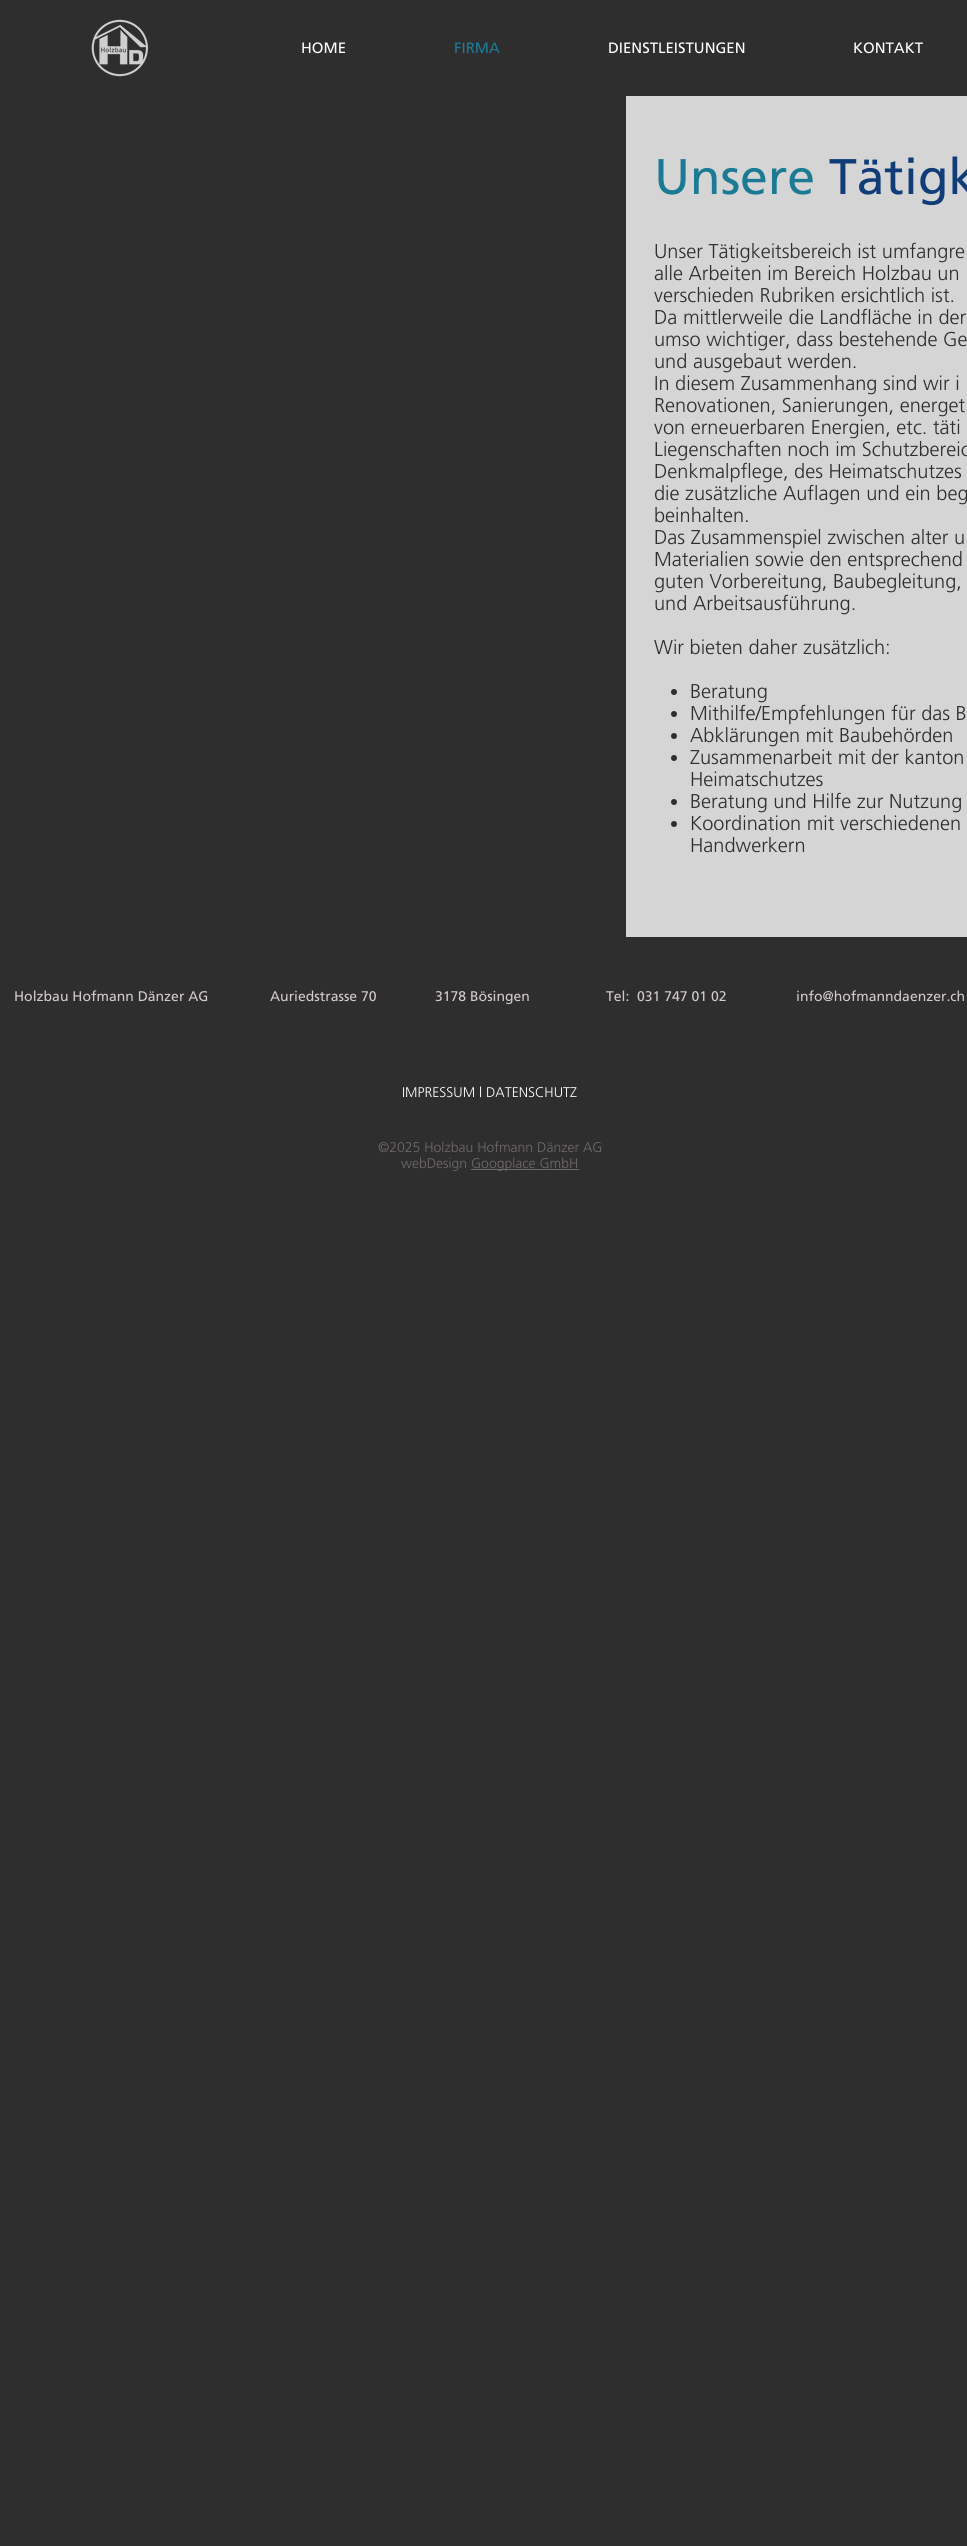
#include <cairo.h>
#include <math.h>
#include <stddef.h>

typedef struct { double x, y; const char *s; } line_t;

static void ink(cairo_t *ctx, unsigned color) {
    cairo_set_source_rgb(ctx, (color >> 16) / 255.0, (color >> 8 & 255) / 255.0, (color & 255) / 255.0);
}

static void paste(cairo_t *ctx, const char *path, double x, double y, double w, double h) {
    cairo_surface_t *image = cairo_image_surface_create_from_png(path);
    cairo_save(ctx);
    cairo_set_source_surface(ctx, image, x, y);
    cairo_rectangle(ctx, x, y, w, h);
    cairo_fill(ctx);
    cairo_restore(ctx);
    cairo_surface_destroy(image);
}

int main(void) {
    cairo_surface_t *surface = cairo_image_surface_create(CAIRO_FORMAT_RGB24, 967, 2546);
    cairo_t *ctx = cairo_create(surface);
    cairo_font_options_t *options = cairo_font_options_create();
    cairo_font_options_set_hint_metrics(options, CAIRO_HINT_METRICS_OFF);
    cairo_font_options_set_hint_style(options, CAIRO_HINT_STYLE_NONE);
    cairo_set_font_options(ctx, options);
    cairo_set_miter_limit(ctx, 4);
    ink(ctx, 0x2F2E2E);
    cairo_paint(ctx);
    paste(ctx, "media/1.png", 91, 19, 58, 58);
    cairo_select_font_face(ctx, "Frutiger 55", CAIRO_FONT_SLANT_NORMAL, CAIRO_FONT_WEIGHT_NORMAL);
    cairo_set_font_size(ctx, 15);
    ink(ctx, 0xFFFFFF);
    cairo_move_to(ctx, 301, 53);
    cairo_show_text(ctx, "HOME");
    ink(ctx, 0x1B7B94);
    cairo_move_to(ctx, 454, 53);
    cairo_show_text(ctx, "FIRMA");
    ink(ctx, 0xFFFFFF);
    cairo_move_to(ctx, 608, 53);
    cairo_show_text(ctx, "DIENSTLEISTUNGEN");
    cairo_move_to(ctx, 853, 53);
    cairo_show_text(ctx, "KONTAKT");
    ink(ctx, 0xD5D5D5);
    cairo_rectangle(ctx, 626, 96, 341, 841);
    cairo_fill(ctx);
    cairo_set_font_size(ctx, 50);
    ink(ctx, 0x1B7B94);
    cairo_move_to(ctx, 654, 194);
    cairo_show_text(ctx, "Unsere");
    ink(ctx, 0x103C77);
    cairo_move_to(ctx, 829, 194);
    cairo_show_text(ctx, "Tätigk");
    cairo_select_font_face(ctx, "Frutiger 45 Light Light", CAIRO_FONT_SLANT_NORMAL, CAIRO_FONT_WEIGHT_NORMAL);
    cairo_set_font_size(ctx, 20);
    ink(ctx, 0x2F2E2E);
    {
        static const line_t items[] = {
            {654, 258, "Unser Tätigkeitsbereich ist umfangre"},
            {654, 280, "alle Arbeiten im Bereich Holzbau un"},
            {654, 302, "verschieden Rubriken ersichtlich ist."},
            {654, 324, "Da mittlerweile die Landfläche in der"},
            {654, 346, "umso wichtiger, dass bestehende Ge"},
            {654, 368, "und ausgebaut werden."},
            {654, 390, "In diesem Zusammenhang sind wir i"},
            {654, 412, "Renovationen, Sanierungen, energet"},
            {654, 434, "von erneuerbaren Energien, etc. täti"},
            {654, 456, "Liegenschaften noch im Schutzbereic"},
            {654, 478, "Denkmalpflege, des Heimatschutzes"},
            {654, 500, "die zusätzliche Auflagen und ein beg"},
            {654, 522, "beinhalten."},
            {654, 544, "Das Zusammenspiel zwischen alter u"},
            {654, 566, "Materialien sowie den entsprechend"},
            {654, 588, "guten Vorbereitung, Baubegleitung,"},
            {654, 610, "und Arbeitsausführung."},
            {654, 654, "Wir bieten daher zusätzlich:"},
        };
        for (size_t i = 0; i < sizeof items / sizeof *items; i++) {
            cairo_move_to(ctx, items[i].x, items[i].y);
            cairo_show_text(ctx, items[i].s);
        }
    }
    cairo_new_path(ctx);
    cairo_arc(ctx, 674, 692, 3, 0, 2 * M_PI);
    cairo_fill(ctx);
    cairo_move_to(ctx, 690, 698);
    cairo_show_text(ctx, "Beratung");
    cairo_new_path(ctx);
    cairo_arc(ctx, 674, 714, 3, 0, 2 * M_PI);
    cairo_fill(ctx);
    cairo_move_to(ctx, 690, 720);
    cairo_show_text(ctx, "Mithilfe/Empfehlungen für das B");
    cairo_new_path(ctx);
    cairo_arc(ctx, 674, 736, 3, 0, 2 * M_PI);
    cairo_fill(ctx);
    cairo_move_to(ctx, 690, 742);
    cairo_show_text(ctx, "Abklärungen mit Baubehörden");
    cairo_new_path(ctx);
    cairo_arc(ctx, 674, 758, 3, 0, 2 * M_PI);
    cairo_fill(ctx);
    cairo_move_to(ctx, 690, 764);
    cairo_show_text(ctx, "Zusammenarbeit mit der kanton");
    cairo_move_to(ctx, 690, 786);
    cairo_show_text(ctx, "Heimatschutzes");
    cairo_new_path(ctx);
    cairo_arc(ctx, 674, 802, 3, 0, 2 * M_PI);
    cairo_fill(ctx);
    cairo_move_to(ctx, 690, 808);
    cairo_show_text(ctx, "Beratung und Hilfe zur Nutzung");
    cairo_new_path(ctx);
    cairo_arc(ctx, 674, 824, 3, 0, 2 * M_PI);
    cairo_fill(ctx);
    cairo_move_to(ctx, 690, 830);
    cairo_show_text(ctx, "Koordination mit verschiedenen");
    cairo_move_to(ctx, 690, 852);
    cairo_show_text(ctx, "Handwerkern");
    cairo_select_font_face(ctx, "Frutiger 55", CAIRO_FONT_SLANT_NORMAL, CAIRO_FONT_WEIGHT_NORMAL);
    cairo_set_font_size(ctx, 14);
    ink(ctx, 0xD1CAC9);
    {
        static const line_t items[] = {
            {14, 1001, "Holzbau Hofmann Dänzer AG"},
            {270, 1001, "Auriedstrasse 70"},
            {435, 1001, "3178 Bösingen"},
            {606, 1001, "Tel:"},
            {637, 1001, "031 747 01 02"},
            {796, 1001, "info@hofmanndaenzer.ch"},
        };
        for (size_t i = 0; i < sizeof items / sizeof *items; i++) {
            cairo_move_to(ctx, items[i].x, items[i].y);
            cairo_show_text(ctx, items[i].s);
        }
    }
    cairo_select_font_face(ctx, "Frutiger 45 Light Light", CAIRO_FONT_SLANT_NORMAL, CAIRO_FONT_WEIGHT_NORMAL);
    ink(ctx, 0xFFFFFF);
    cairo_move_to(ctx, 402, 1097);
    cairo_show_text(ctx, "IMPRESSUM | DATENSCHUTZ");
    ink(ctx, 0x6E6968);
    cairo_move_to(ctx, 378, 1152);
    cairo_show_text(ctx, "©2025 Holzbau Hofmann Dänzer AG");
    cairo_move_to(ctx, 401, 1168);
    cairo_show_text(ctx, "webDesign");
    cairo_rectangle(ctx, 471, 1169, 108, 1);
    cairo_fill(ctx);
    cairo_move_to(ctx, 471, 1168);
    cairo_show_text(ctx, "Googplace GmbH");
    cairo_surface_write_to_png(surface, "image.png");
    cairo_font_options_destroy(options);
    cairo_destroy(ctx);
    cairo_surface_destroy(surface);
    return 0;
}
